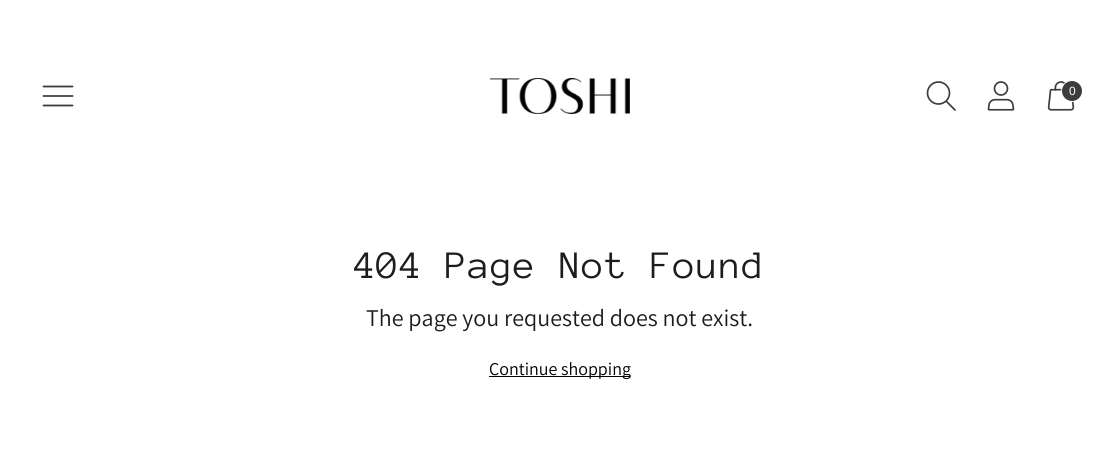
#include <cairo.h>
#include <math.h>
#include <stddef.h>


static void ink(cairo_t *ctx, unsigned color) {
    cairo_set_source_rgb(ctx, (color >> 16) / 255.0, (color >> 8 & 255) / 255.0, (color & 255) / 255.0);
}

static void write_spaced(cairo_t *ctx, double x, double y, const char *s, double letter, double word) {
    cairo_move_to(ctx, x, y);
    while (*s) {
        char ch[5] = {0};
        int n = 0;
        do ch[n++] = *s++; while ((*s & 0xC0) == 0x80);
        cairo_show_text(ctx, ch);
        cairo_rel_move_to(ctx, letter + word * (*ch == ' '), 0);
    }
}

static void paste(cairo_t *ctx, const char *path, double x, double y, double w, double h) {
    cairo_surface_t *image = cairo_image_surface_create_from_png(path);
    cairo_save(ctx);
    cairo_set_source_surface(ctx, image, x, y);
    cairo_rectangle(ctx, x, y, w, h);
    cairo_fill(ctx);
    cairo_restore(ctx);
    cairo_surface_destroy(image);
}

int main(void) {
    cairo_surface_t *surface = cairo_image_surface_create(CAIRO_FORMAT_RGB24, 1119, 454);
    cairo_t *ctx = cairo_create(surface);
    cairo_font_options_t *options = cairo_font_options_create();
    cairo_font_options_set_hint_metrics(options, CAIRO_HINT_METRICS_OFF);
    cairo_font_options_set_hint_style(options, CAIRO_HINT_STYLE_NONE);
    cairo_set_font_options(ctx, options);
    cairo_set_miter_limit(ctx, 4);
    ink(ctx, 0xFFFFFF);
    cairo_paint(ctx);
    cairo_new_path(ctx);
    cairo_move_to(ctx, 43.5, 96);
    cairo_line_to(ctx, 72.5, 96);
    cairo_move_to(ctx, 43.5, 86.5);
    cairo_line_to(ctx, 72.5, 86.5);
    cairo_move_to(ctx, 43.5, 105.5);
    cairo_line_to(ctx, 72.5, 105.5);
    ink(ctx, 0x3D3D3D);
    cairo_set_line_width(ctx, 1.8);
    cairo_set_line_cap(ctx, CAIRO_LINE_CAP_ROUND);
    cairo_set_line_join(ctx, CAIRO_LINE_JOIN_ROUND);
    cairo_stroke(ctx);
    paste(ctx, "media/1.png", 490, 78, 140, 36);
    cairo_arc(ctx, 938.5, 93, 11, 0, 2 * M_PI);
    cairo_set_line_width(ctx, 1.7);
    cairo_set_line_cap(ctx, CAIRO_LINE_CAP_BUTT);
    cairo_set_line_join(ctx, CAIRO_LINE_JOIN_MITER);
    cairo_stroke(ctx);
    cairo_new_path(ctx);
    cairo_move_to(ctx, 946.5, 101.5);
    cairo_line_to(ctx, 955, 110);
    cairo_set_line_cap(ctx, CAIRO_LINE_CAP_ROUND);
    cairo_set_line_join(ctx, CAIRO_LINE_JOIN_ROUND);
    cairo_stroke(ctx);
    paste(ctx, "media/2.png", 987, 81, 28, 30);
    paste(ctx, "media/3.png", 1047, 81, 28, 30);
    cairo_arc(ctx, 1072, 91, 10.5, 0, 2 * M_PI);
    ink(ctx, 0xFFFFFF);
    cairo_set_line_width(ctx, 1);
    cairo_set_line_cap(ctx, CAIRO_LINE_CAP_BUTT);
    cairo_set_line_join(ctx, CAIRO_LINE_JOIN_MITER);
    cairo_stroke(ctx);
    ink(ctx, 0x3D3D3D);
    cairo_arc(ctx, 1072, 91, 10, 0, 2 * M_PI);
    cairo_fill(ctx);
    cairo_select_font_face(ctx, "Liberation Sans", CAIRO_FONT_SLANT_NORMAL, CAIRO_FONT_WEIGHT_NORMAL);
    cairo_set_font_size(ctx, 12);
    ink(ctx, 0xFFFFFF);
    cairo_move_to(ctx, 1069, 95);
    cairo_show_text(ctx, "0");
    cairo_select_font_face(ctx, "Anonymous Pro", CAIRO_FONT_SLANT_NORMAL, CAIRO_FONT_WEIGHT_NORMAL);
    cairo_set_font_size(ctx, 40);
    ink(ctx, 0x1D1D1D);
    write_spaced(ctx, 354, 278, "404 Page Not Found", 1, 0);
    cairo_select_font_face(ctx, "Assistant", CAIRO_FONT_SLANT_NORMAL, CAIRO_FONT_WEIGHT_NORMAL);
    cairo_set_font_size(ctx, 24);
    cairo_move_to(ctx, 366, 326);
    cairo_show_text(ctx, "The page you requested does not exist.");
    ink(ctx, 0x000000);
    cairo_rectangle(ctx, 489, 376, 141, 1);
    cairo_fill(ctx);
    cairo_set_font_size(ctx, 18);
    cairo_move_to(ctx, 489, 375);
    cairo_show_text(ctx, "Continue shopping");
    cairo_surface_write_to_png(surface, "image.png");
    cairo_font_options_destroy(options);
    cairo_destroy(ctx);
    cairo_surface_destroy(surface);
    return 0;
}
